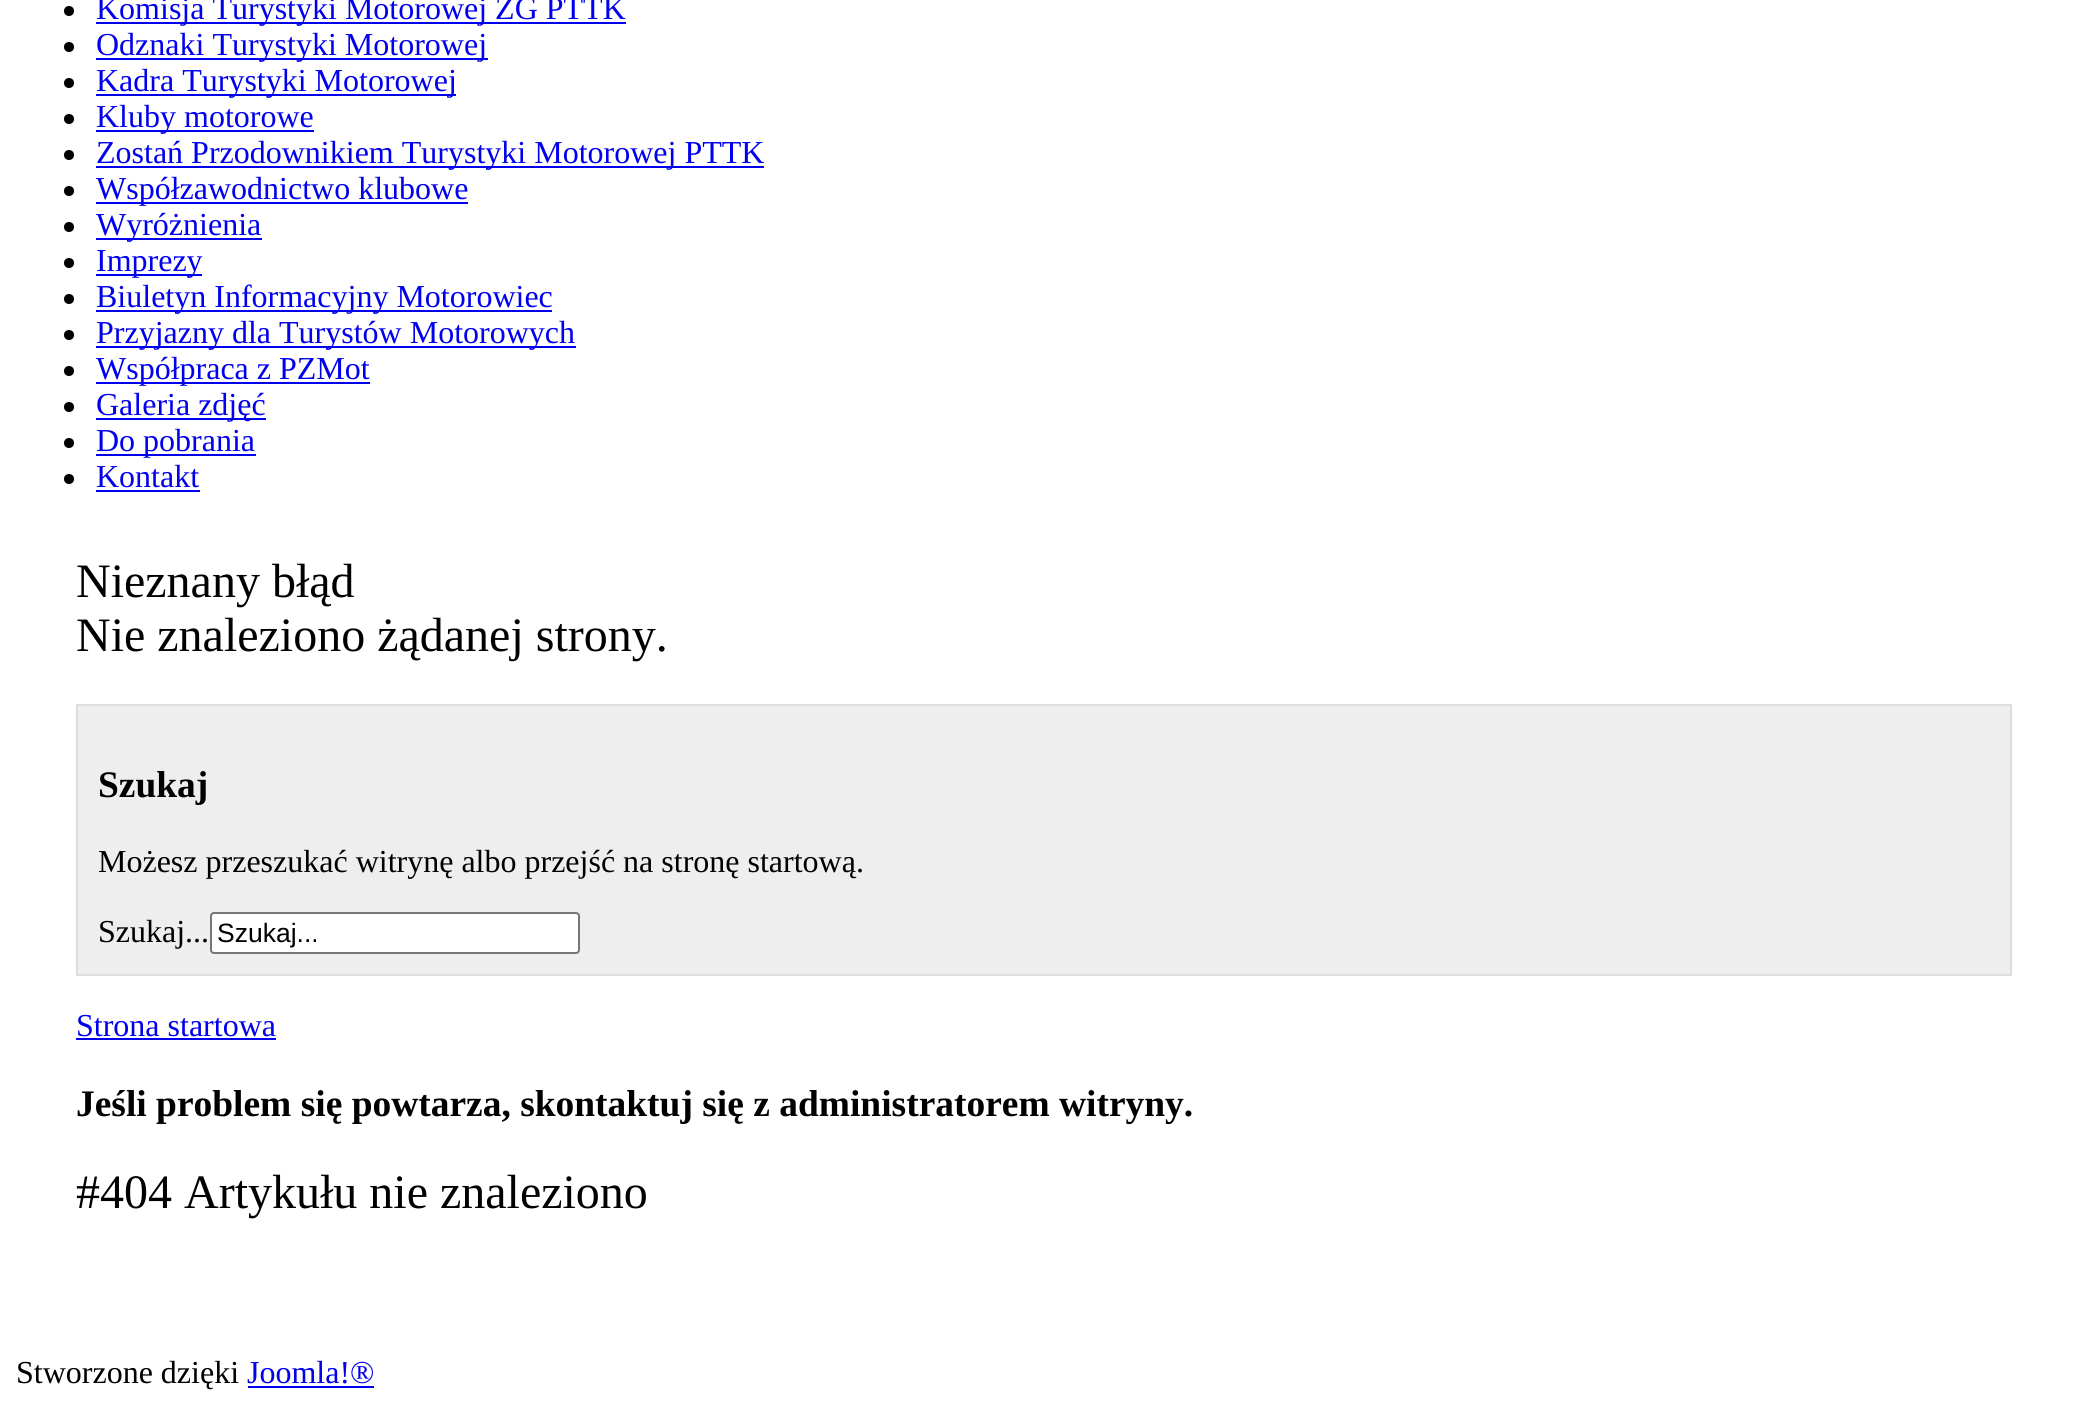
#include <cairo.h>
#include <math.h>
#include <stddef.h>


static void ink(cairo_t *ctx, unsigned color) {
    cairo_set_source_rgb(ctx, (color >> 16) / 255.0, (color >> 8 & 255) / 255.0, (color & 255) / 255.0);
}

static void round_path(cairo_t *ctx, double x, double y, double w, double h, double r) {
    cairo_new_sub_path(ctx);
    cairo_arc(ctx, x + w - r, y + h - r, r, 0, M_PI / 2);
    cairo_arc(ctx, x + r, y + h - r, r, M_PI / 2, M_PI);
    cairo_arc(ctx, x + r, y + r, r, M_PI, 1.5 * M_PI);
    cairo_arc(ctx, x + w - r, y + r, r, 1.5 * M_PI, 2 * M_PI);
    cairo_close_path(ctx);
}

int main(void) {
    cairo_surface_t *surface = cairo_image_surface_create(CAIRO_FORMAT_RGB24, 2087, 1406);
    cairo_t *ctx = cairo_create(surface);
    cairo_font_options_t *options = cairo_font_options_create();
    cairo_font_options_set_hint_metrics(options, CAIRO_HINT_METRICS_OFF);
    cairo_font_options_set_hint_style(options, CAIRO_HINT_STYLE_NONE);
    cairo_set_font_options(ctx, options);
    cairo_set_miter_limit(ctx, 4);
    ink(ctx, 0xFFFFFF);
    cairo_paint(ctx);
    ink(ctx, 0x000000);
    cairo_arc(ctx, 69, 11, 5, 0, 2 * M_PI);
    cairo_fill(ctx);
    ink(ctx, 0x0000EE);
    cairo_rectangle(ctx, 96, 22, 530, 2);
    cairo_fill(ctx);
    cairo_select_font_face(ctx, "Liberation Serif", CAIRO_FONT_SLANT_NORMAL, CAIRO_FONT_WEIGHT_NORMAL);
    cairo_set_font_size(ctx, 32);
    cairo_move_to(ctx, 96, 19);
    cairo_show_text(ctx, "Komisja Turystyki Motorowej ZG PTTK");
    ink(ctx, 0x000000);
    cairo_new_path(ctx);
    cairo_arc(ctx, 69, 47, 5, 0, 2 * M_PI);
    cairo_fill(ctx);
    ink(ctx, 0x0000EE);
    cairo_rectangle(ctx, 96, 58, 392, 2);
    cairo_fill(ctx);
    cairo_move_to(ctx, 96, 55);
    cairo_show_text(ctx, "Odznaki Turystyki Motorowej");
    ink(ctx, 0x000000);
    cairo_new_path(ctx);
    cairo_arc(ctx, 69, 83, 5, 0, 2 * M_PI);
    cairo_fill(ctx);
    ink(ctx, 0x0000EE);
    cairo_rectangle(ctx, 96, 94, 360, 2);
    cairo_fill(ctx);
    cairo_move_to(ctx, 96, 91);
    cairo_show_text(ctx, "Kadra Turystyki Motorowej");
    ink(ctx, 0x000000);
    cairo_new_path(ctx);
    cairo_arc(ctx, 69, 119, 5, 0, 2 * M_PI);
    cairo_fill(ctx);
    ink(ctx, 0x0000EE);
    cairo_rectangle(ctx, 96, 130, 218, 2);
    cairo_fill(ctx);
    cairo_move_to(ctx, 96, 127);
    cairo_show_text(ctx, "Kluby motorowe");
    ink(ctx, 0x000000);
    cairo_new_path(ctx);
    cairo_arc(ctx, 69, 155, 5, 0, 2 * M_PI);
    cairo_fill(ctx);
    ink(ctx, 0x0000EE);
    cairo_rectangle(ctx, 96, 166, 668, 2);
    cairo_fill(ctx);
    cairo_move_to(ctx, 96, 163);
    cairo_show_text(ctx, "Zostań Przodownikiem Turystyki Motorowej PTTK");
    ink(ctx, 0x000000);
    cairo_new_path(ctx);
    cairo_arc(ctx, 69, 191, 5, 0, 2 * M_PI);
    cairo_fill(ctx);
    ink(ctx, 0x0000EE);
    cairo_rectangle(ctx, 96, 202, 372, 2);
    cairo_fill(ctx);
    cairo_move_to(ctx, 96, 199);
    cairo_show_text(ctx, "Współzawodnictwo klubowe");
    ink(ctx, 0x000000);
    cairo_new_path(ctx);
    cairo_arc(ctx, 69, 227, 5, 0, 2 * M_PI);
    cairo_fill(ctx);
    ink(ctx, 0x0000EE);
    cairo_rectangle(ctx, 96, 238, 166, 2);
    cairo_fill(ctx);
    cairo_move_to(ctx, 96, 235);
    cairo_show_text(ctx, "Wyróżnienia");
    ink(ctx, 0x000000);
    cairo_new_path(ctx);
    cairo_arc(ctx, 69, 263, 5, 0, 2 * M_PI);
    cairo_fill(ctx);
    ink(ctx, 0x0000EE);
    cairo_rectangle(ctx, 96, 274, 106, 2);
    cairo_fill(ctx);
    cairo_move_to(ctx, 96, 271);
    cairo_show_text(ctx, "Imprezy");
    ink(ctx, 0x000000);
    cairo_new_path(ctx);
    cairo_arc(ctx, 69, 299, 5, 0, 2 * M_PI);
    cairo_fill(ctx);
    ink(ctx, 0x0000EE);
    cairo_rectangle(ctx, 96, 310, 456, 2);
    cairo_fill(ctx);
    cairo_move_to(ctx, 96, 307);
    cairo_show_text(ctx, "Biuletyn Informacyjny Motorowiec");
    ink(ctx, 0x000000);
    cairo_new_path(ctx);
    cairo_arc(ctx, 69, 335, 5, 0, 2 * M_PI);
    cairo_fill(ctx);
    ink(ctx, 0x0000EE);
    cairo_rectangle(ctx, 96, 346, 480, 2);
    cairo_fill(ctx);
    cairo_move_to(ctx, 96, 343);
    cairo_show_text(ctx, "Przyjazny dla Turystów Motorowych");
    ink(ctx, 0x000000);
    cairo_new_path(ctx);
    cairo_arc(ctx, 69, 371, 5, 0, 2 * M_PI);
    cairo_fill(ctx);
    ink(ctx, 0x0000EE);
    cairo_rectangle(ctx, 96, 382, 274, 2);
    cairo_fill(ctx);
    cairo_move_to(ctx, 96, 379);
    cairo_show_text(ctx, "Współpraca z PZMot");
    ink(ctx, 0x000000);
    cairo_new_path(ctx);
    cairo_arc(ctx, 69, 407, 5, 0, 2 * M_PI);
    cairo_fill(ctx);
    ink(ctx, 0x0000EE);
    cairo_rectangle(ctx, 96, 418, 170, 2);
    cairo_fill(ctx);
    cairo_move_to(ctx, 96, 415);
    cairo_show_text(ctx, "Galeria zdjęć");
    ink(ctx, 0x000000);
    cairo_new_path(ctx);
    cairo_arc(ctx, 69, 443, 5, 0, 2 * M_PI);
    cairo_fill(ctx);
    ink(ctx, 0x0000EE);
    cairo_rectangle(ctx, 96, 454, 160, 2);
    cairo_fill(ctx);
    cairo_move_to(ctx, 96, 451);
    cairo_show_text(ctx, "Do pobrania");
    ink(ctx, 0x000000);
    cairo_new_path(ctx);
    cairo_arc(ctx, 69, 479, 5, 0, 2 * M_PI);
    cairo_fill(ctx);
    ink(ctx, 0x0000EE);
    cairo_move_to(ctx, 96, 487);
    cairo_show_text(ctx, "Kontakt");
    cairo_rectangle(ctx, 96, 490, 104, 2);
    cairo_fill(ctx);
    cairo_set_font_size(ctx, 48);
    ink(ctx, 0x000000);
    cairo_move_to(ctx, 76, 597);
    cairo_show_text(ctx, "Nieznany błąd");
    cairo_move_to(ctx, 76, 651);
    cairo_show_text(ctx, "Nie znaleziono żądanej strony.");
    ink(ctx, 0xEEEEEE);
    cairo_rectangle(ctx, 77, 705, 1934, 270);
    cairo_fill_preserve(ctx);
    ink(ctx, 0xDDDDDD);
    cairo_stroke(ctx);
    cairo_select_font_face(ctx, "Liberation Serif", CAIRO_FONT_SLANT_NORMAL, CAIRO_FONT_WEIGHT_BOLD);
    cairo_set_font_size(ctx, 37.45);
    ink(ctx, 0x000000);
    cairo_move_to(ctx, 98, 797);
    cairo_show_text(ctx, "Szukaj");
    cairo_select_font_face(ctx, "Liberation Serif", CAIRO_FONT_SLANT_NORMAL, CAIRO_FONT_WEIGHT_NORMAL);
    cairo_set_font_size(ctx, 32);
    cairo_move_to(ctx, 98, 872);
    cairo_show_text(ctx, "Możesz przeszukać witrynę albo przejść na stronę startową.");
    cairo_move_to(ctx, 98, 942);
    cairo_show_text(ctx, "Szukaj...");
    ink(ctx, 0xFFFFFF);
    round_path(ctx, 211, 913, 368, 40, 3);
    cairo_fill_preserve(ctx);
    ink(ctx, 0x767676);
    cairo_stroke(ctx);
    cairo_select_font_face(ctx, "Liberation Sans", CAIRO_FONT_SLANT_NORMAL, CAIRO_FONT_WEIGHT_NORMAL);
    cairo_set_font_size(ctx, 26.5);
    ink(ctx, 0x000000);
    cairo_move_to(ctx, 217, 942);
    cairo_show_text(ctx, "Szukaj...");
    cairo_select_font_face(ctx, "Liberation Serif", CAIRO_FONT_SLANT_NORMAL, CAIRO_FONT_WEIGHT_NORMAL);
    cairo_set_font_size(ctx, 32);
    ink(ctx, 0x0000EE);
    cairo_move_to(ctx, 76, 1036);
    cairo_show_text(ctx, "Strona startowa");
    cairo_rectangle(ctx, 76, 1038, 200, 2);
    cairo_fill(ctx);
    cairo_select_font_face(ctx, "Liberation Serif", CAIRO_FONT_SLANT_NORMAL, CAIRO_FONT_WEIGHT_BOLD);
    cairo_set_font_size(ctx, 37.45);
    ink(ctx, 0x000000);
    cairo_move_to(ctx, 76, 1116);
    cairo_show_text(ctx, "Jeśli problem się powtarza, skontaktuj się z administratorem witryny.");
    cairo_select_font_face(ctx, "Liberation Serif", CAIRO_FONT_SLANT_NORMAL, CAIRO_FONT_WEIGHT_NORMAL);
    cairo_set_font_size(ctx, 48);
    cairo_move_to(ctx, 76, 1208);
    cairo_show_text(ctx, "#404 Artykułu nie znaleziono");
    cairo_set_font_size(ctx, 32);
    cairo_move_to(ctx, 16, 1383);
    cairo_show_text(ctx, "Stworzone dzięki");
    ink(ctx, 0x0000EE);
    cairo_move_to(ctx, 247, 1383);
    cairo_show_text(ctx, "Joomla!®");
    cairo_rectangle(ctx, 248, 1386, 126, 2);
    cairo_fill(ctx);
    cairo_surface_write_to_png(surface, "image.png");
    cairo_font_options_destroy(options);
    cairo_destroy(ctx);
    cairo_surface_destroy(surface);
    return 0;
}
